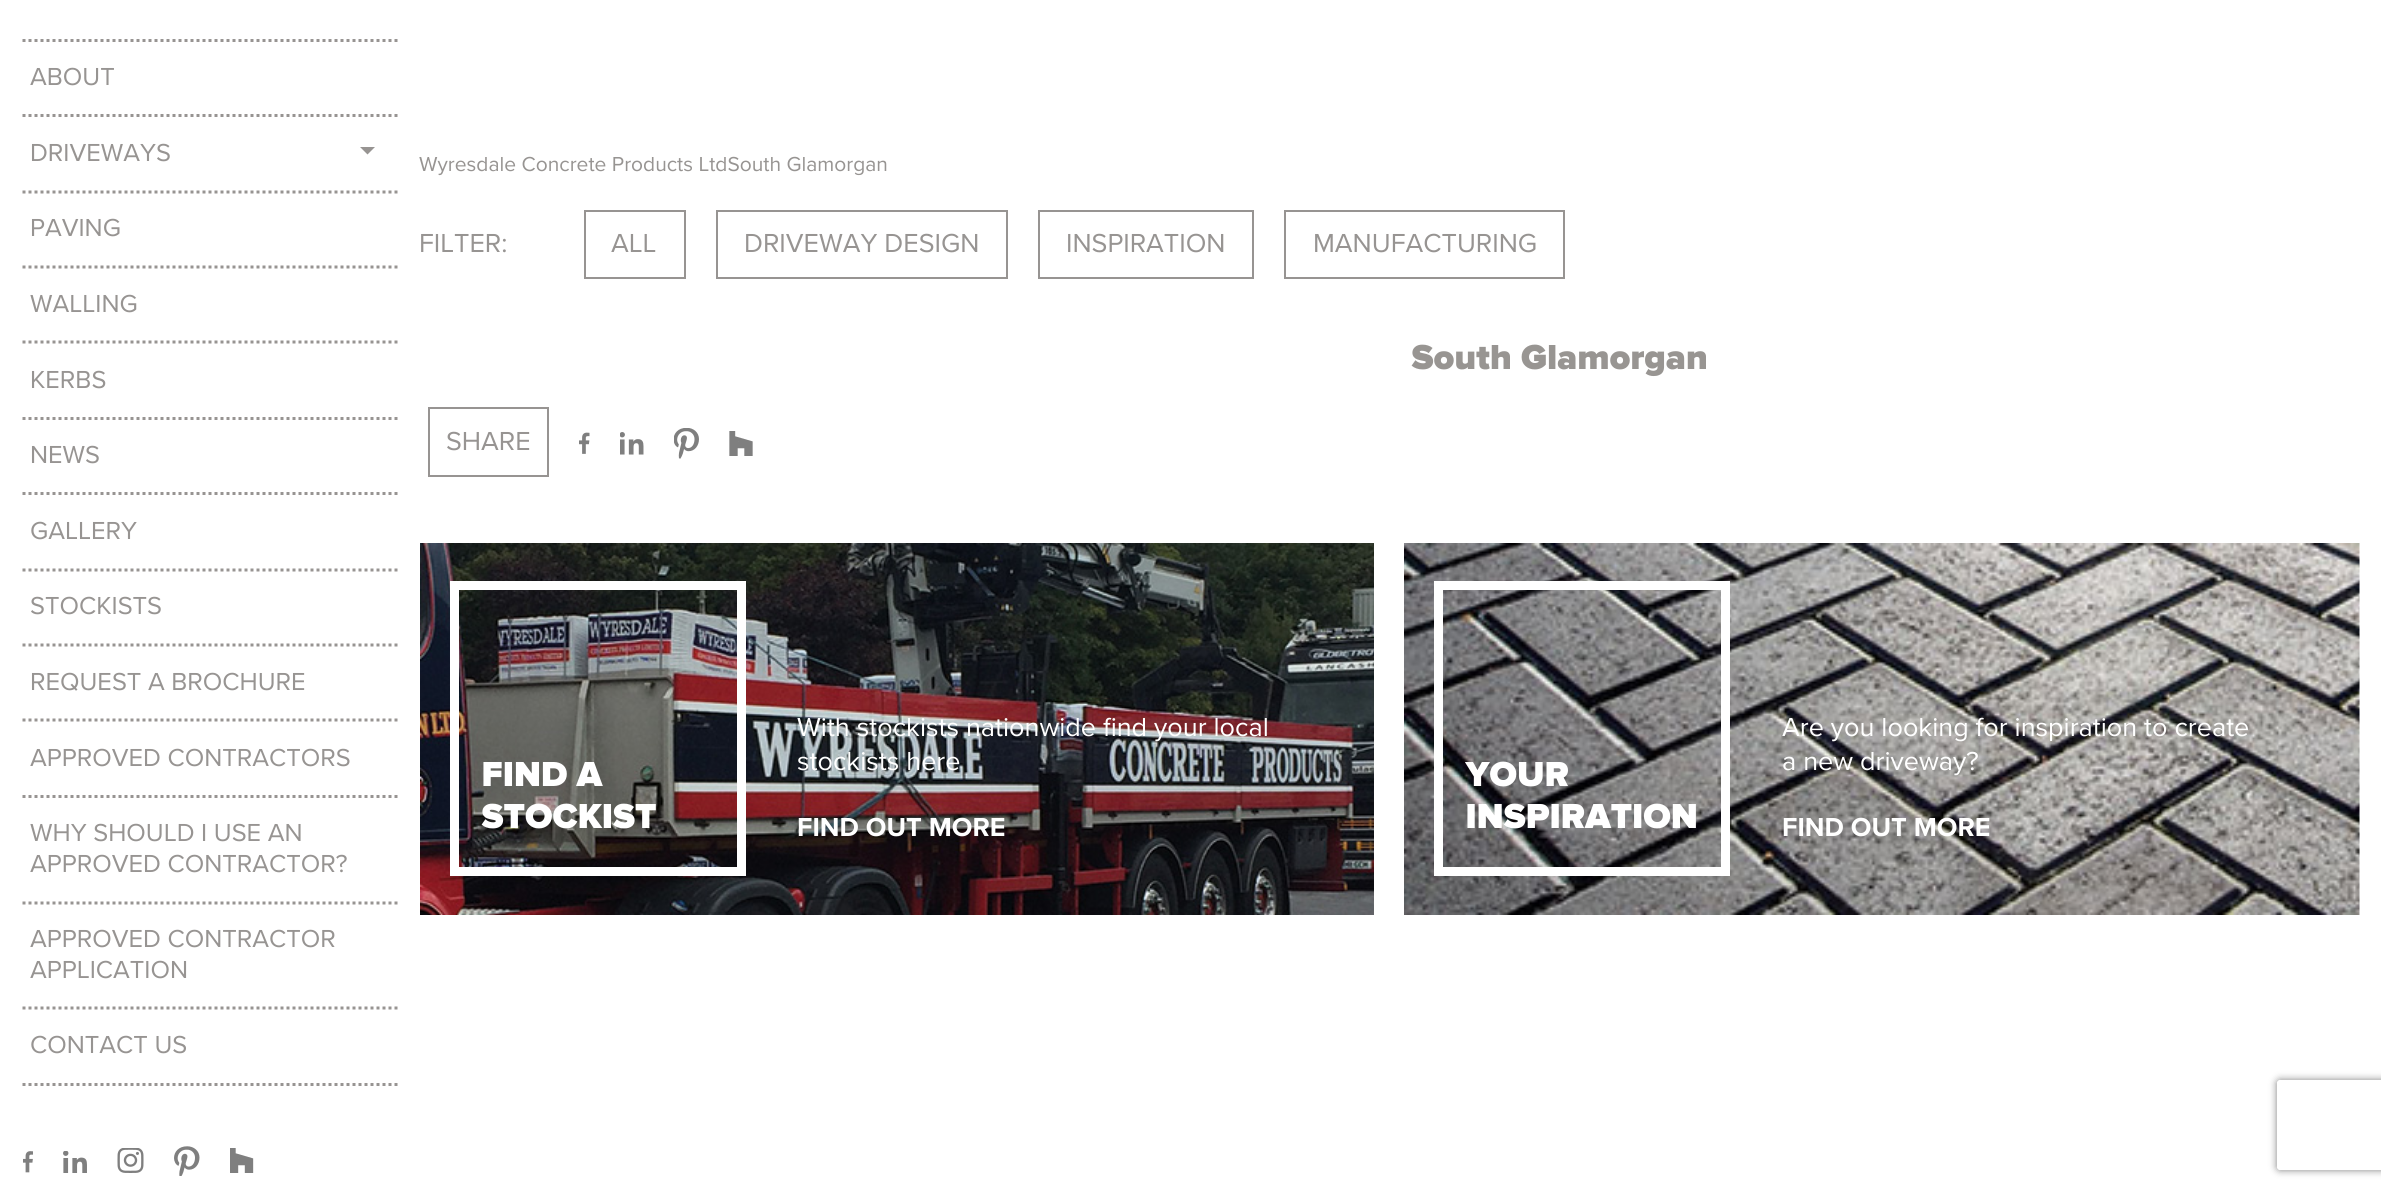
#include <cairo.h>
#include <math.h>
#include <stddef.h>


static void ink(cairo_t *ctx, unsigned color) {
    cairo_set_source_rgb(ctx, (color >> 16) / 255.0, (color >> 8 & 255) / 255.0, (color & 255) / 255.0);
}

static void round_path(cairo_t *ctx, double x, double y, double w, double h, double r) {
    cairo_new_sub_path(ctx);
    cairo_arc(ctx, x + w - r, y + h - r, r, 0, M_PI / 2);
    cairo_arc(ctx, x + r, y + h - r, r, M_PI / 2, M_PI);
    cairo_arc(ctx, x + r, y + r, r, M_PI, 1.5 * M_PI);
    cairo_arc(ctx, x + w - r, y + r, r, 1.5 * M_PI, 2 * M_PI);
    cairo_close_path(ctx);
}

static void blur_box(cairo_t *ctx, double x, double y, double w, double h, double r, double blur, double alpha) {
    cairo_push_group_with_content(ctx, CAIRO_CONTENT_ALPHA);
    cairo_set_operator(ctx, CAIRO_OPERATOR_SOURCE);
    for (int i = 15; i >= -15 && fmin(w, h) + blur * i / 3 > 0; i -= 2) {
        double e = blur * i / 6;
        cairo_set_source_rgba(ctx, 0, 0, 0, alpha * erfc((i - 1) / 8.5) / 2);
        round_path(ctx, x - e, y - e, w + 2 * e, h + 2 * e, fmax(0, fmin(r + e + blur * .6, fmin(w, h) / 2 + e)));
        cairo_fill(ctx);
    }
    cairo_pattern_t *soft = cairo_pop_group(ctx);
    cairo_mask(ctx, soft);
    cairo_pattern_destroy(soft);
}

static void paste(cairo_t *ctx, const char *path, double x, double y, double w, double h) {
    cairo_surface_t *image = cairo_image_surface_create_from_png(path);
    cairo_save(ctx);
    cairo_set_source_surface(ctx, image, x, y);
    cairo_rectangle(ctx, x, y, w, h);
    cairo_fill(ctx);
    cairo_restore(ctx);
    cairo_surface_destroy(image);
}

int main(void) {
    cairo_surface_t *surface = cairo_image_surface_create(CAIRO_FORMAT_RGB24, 2381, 1190);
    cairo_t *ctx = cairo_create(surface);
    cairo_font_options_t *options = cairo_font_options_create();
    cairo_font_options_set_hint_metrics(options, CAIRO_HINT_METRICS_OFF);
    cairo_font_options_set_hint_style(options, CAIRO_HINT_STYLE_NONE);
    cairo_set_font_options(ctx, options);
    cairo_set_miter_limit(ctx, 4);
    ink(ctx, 0xFFFFFF);
    cairo_paint(ctx);
    cairo_new_path(ctx);
    cairo_move_to(ctx, 22.5, 40.5);
    cairo_line_to(ctx, 397.5, 40.5);
    ink(ctx, 0x979492);
    cairo_set_line_width(ctx, 3);
    cairo_set_dash(ctx, (double[]){3, 3}, 2, 0);
    cairo_stroke(ctx);
    cairo_new_path(ctx);
    cairo_move_to(ctx, 22.5, 115.5);
    cairo_line_to(ctx, 397.5, 115.5);
    cairo_stroke(ctx);
    cairo_select_font_face(ctx, "Proxima Nova", CAIRO_FONT_SLANT_NORMAL, CAIRO_FONT_WEIGHT_NORMAL);
    cairo_set_font_size(ctx, 25.5);
    cairo_move_to(ctx, 30, 85);
    cairo_show_text(ctx, "ABOUT");
    cairo_new_path(ctx);
    cairo_move_to(ctx, 22.5, 192);
    cairo_line_to(ctx, 397.5, 192);
    cairo_stroke(ctx);
    cairo_move_to(ctx, 30, 161);
    cairo_show_text(ctx, "DRIVEWAYS");
    cairo_new_path(ctx);
    cairo_move_to(ctx, 360, 147);
    cairo_line_to(ctx, 375, 147);
    cairo_line_to(ctx, 367.5, 154.5);
    cairo_close_path(ctx);
    cairo_fill(ctx);
    cairo_new_path(ctx);
    cairo_move_to(ctx, 22.5, 267);
    cairo_line_to(ctx, 397.5, 267);
    cairo_stroke(ctx);
    cairo_move_to(ctx, 30, 236);
    cairo_show_text(ctx, "PAVING");
    cairo_new_path(ctx);
    cairo_move_to(ctx, 22.5, 342);
    cairo_line_to(ctx, 397.5, 342);
    cairo_stroke(ctx);
    cairo_move_to(ctx, 30, 312);
    cairo_show_text(ctx, "WALLING");
    cairo_new_path(ctx);
    cairo_move_to(ctx, 22.5, 418.5);
    cairo_line_to(ctx, 397.5, 418.5);
    cairo_stroke(ctx);
    cairo_move_to(ctx, 30, 388);
    cairo_show_text(ctx, "KERBS");
    cairo_new_path(ctx);
    cairo_move_to(ctx, 22.5, 493.5);
    cairo_line_to(ctx, 397.5, 493.5);
    cairo_stroke(ctx);
    cairo_move_to(ctx, 30, 463);
    cairo_show_text(ctx, "NEWS");
    cairo_new_path(ctx);
    cairo_move_to(ctx, 22.5, 570);
    cairo_line_to(ctx, 397.5, 570);
    cairo_stroke(ctx);
    cairo_move_to(ctx, 30, 539);
    cairo_show_text(ctx, "GALLERY");
    cairo_new_path(ctx);
    cairo_move_to(ctx, 22.5, 645);
    cairo_line_to(ctx, 397.5, 645);
    cairo_stroke(ctx);
    cairo_move_to(ctx, 30, 614);
    cairo_show_text(ctx, "STOCKISTS");
    cairo_new_path(ctx);
    cairo_move_to(ctx, 22.5, 720);
    cairo_line_to(ctx, 397.5, 720);
    cairo_stroke(ctx);
    cairo_move_to(ctx, 30, 690);
    cairo_show_text(ctx, "REQUEST A BROCHURE");
    cairo_new_path(ctx);
    cairo_move_to(ctx, 22.5, 796.5);
    cairo_line_to(ctx, 397.5, 796.5);
    cairo_stroke(ctx);
    cairo_move_to(ctx, 30, 766);
    cairo_show_text(ctx, "APPROVED CONTRACTORS");
    cairo_new_path(ctx);
    cairo_move_to(ctx, 22.5, 903);
    cairo_line_to(ctx, 397.5, 903);
    cairo_stroke(ctx);
    cairo_move_to(ctx, 30, 841);
    cairo_show_text(ctx, "WHY SHOULD I USE AN");
    cairo_move_to(ctx, 30, 872);
    cairo_show_text(ctx, "APPROVED CONTRACTOR?");
    cairo_new_path(ctx);
    cairo_move_to(ctx, 22.5, 1008);
    cairo_line_to(ctx, 397.5, 1008);
    cairo_stroke(ctx);
    cairo_move_to(ctx, 30, 947);
    cairo_show_text(ctx, "APPROVED CONTRACTOR");
    cairo_move_to(ctx, 30, 978);
    cairo_show_text(ctx, "APPLICATION");
    cairo_new_path(ctx);
    cairo_move_to(ctx, 22.5, 1084.5);
    cairo_line_to(ctx, 397.5, 1084.5);
    cairo_stroke(ctx);
    cairo_move_to(ctx, 30, 1053);
    cairo_show_text(ctx, "CONTACT US");
    paste(ctx, "media/1.png", 23, 1151, 10, 22);
    paste(ctx, "media/2.png", 63, 1151, 24, 22);
    paste(ctx, "media/3.png", 117, 1148, 27, 25);
    paste(ctx, "media/4.png", 174, 1146, 26, 30);
    paste(ctx, "media/5.png", 230, 1148, 24, 25);
    cairo_set_font_size(ctx, 21);
    cairo_move_to(ctx, 419, 171);
    cairo_show_text(ctx, "Wyresdale Concrete Products LtdSouth Glamorgan");
    cairo_set_font_size(ctx, 27);
    cairo_move_to(ctx, 419, 252);
    cairo_show_text(ctx, "FILTER:");
    cairo_rectangle(ctx, 585, 211, 100, 67);
    cairo_set_line_width(ctx, 2);
    cairo_set_dash(ctx, NULL, 0, 0);
    cairo_stroke(ctx);
    cairo_move_to(ctx, 611, 252);
    cairo_show_text(ctx, "ALL");
    cairo_rectangle(ctx, 717, 211, 290, 67);
    cairo_stroke(ctx);
    cairo_move_to(ctx, 744, 252);
    cairo_show_text(ctx, "DRIVEWAY DESIGN");
    cairo_rectangle(ctx, 1039, 211, 214, 67);
    cairo_stroke(ctx);
    cairo_move_to(ctx, 1066, 252);
    cairo_show_text(ctx, "INSPIRATION");
    cairo_rectangle(ctx, 1285, 211, 279, 67);
    cairo_stroke(ctx);
    cairo_move_to(ctx, 1313, 252);
    cairo_show_text(ctx, "MANUFACTURING");
    paste(ctx, "media/6.png", 1411, 344, 295, 33);
    cairo_rectangle(ctx, 429, 408, 119, 68);
    cairo_stroke(ctx);
    cairo_move_to(ctx, 446, 450);
    cairo_show_text(ctx, "SHARE");
    paste(ctx, "media/7.png", 579, 432, 11, 22);
    paste(ctx, "media/8.png", 620, 432, 24, 23);
    paste(ctx, "media/9.png", 674, 428, 25, 31);
    paste(ctx, "media/10.png", 729, 431, 24, 25);
    paste(ctx, "media/11.png", 420, 543, 954, 372);
    cairo_rectangle(ctx, 454.5, 585.5, 287, 286);
    ink(ctx, 0xFFFFFF);
    cairo_set_line_width(ctx, 9);
    cairo_stroke(ctx);
    paste(ctx, "media/12.png", 483, 762, 120, 24);
    paste(ctx, "media/13.png", 481, 803, 175, 26);
    cairo_move_to(ctx, 797, 736);
    cairo_show_text(ctx, "With stockists nationwide find your local");
    cairo_move_to(ctx, 797, 770);
    cairo_show_text(ctx, "stockists here");
    cairo_select_font_face(ctx, "Proxima Nova", CAIRO_FONT_SLANT_NORMAL, CAIRO_FONT_WEIGHT_BOLD);
    cairo_move_to(ctx, 797, 836);
    cairo_show_text(ctx, "FIND OUT MORE");
    paste(ctx, "media/14.png", 1404, 543, 956, 372);
    cairo_rectangle(ctx, 1438.5, 585.5, 287, 286);
    cairo_stroke(ctx);
    paste(ctx, "media/15.png", 1465, 761, 103, 26);
    paste(ctx, "media/16.png", 1467, 803, 229, 26);
    cairo_select_font_face(ctx, "Proxima Nova", CAIRO_FONT_SLANT_NORMAL, CAIRO_FONT_WEIGHT_NORMAL);
    cairo_move_to(ctx, 1782, 736);
    cairo_show_text(ctx, "Are you looking for inspiration to create");
    cairo_move_to(ctx, 1782, 770);
    cairo_show_text(ctx, "a new driveway?");
    cairo_select_font_face(ctx, "Proxima Nova", CAIRO_FONT_SLANT_NORMAL, CAIRO_FONT_WEIGHT_BOLD);
    cairo_move_to(ctx, 1782, 836);
    cairo_show_text(ctx, "FIND OUT MORE");
    cairo_save(ctx);
    cairo_set_fill_rule(ctx, CAIRO_FILL_RULE_EVEN_ODD);
    cairo_new_path(ctx);
    cairo_move_to(ctx, 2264, 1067);
    cairo_line_to(ctx, 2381, 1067);
    cairo_line_to(ctx, 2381, 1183);
    cairo_line_to(ctx, 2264, 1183);
    cairo_close_path(ctx);
    cairo_move_to(ctx, 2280, 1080);
    cairo_line_to(ctx, 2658, 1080);
    cairo_curve_to(ctx, 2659.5, 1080, 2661, 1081.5, 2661, 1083);
    cairo_line_to(ctx, 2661, 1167);
    cairo_curve_to(ctx, 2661, 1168.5, 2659.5, 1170, 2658, 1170);
    cairo_line_to(ctx, 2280, 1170);
    cairo_curve_to(ctx, 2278.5, 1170, 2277, 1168.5, 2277, 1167);
    cairo_line_to(ctx, 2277, 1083);
    cairo_curve_to(ctx, 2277, 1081.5, 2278.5, 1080, 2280, 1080);
    cairo_close_path(ctx);
    cairo_clip(ctx);
    ink(ctx, 0x808080);
    blur_box(ctx, 2277, 1080, 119, 90, 3, 4, 1);
    cairo_restore(ctx);
    cairo_surface_write_to_png(surface, "image.png");
    cairo_font_options_destroy(options);
    cairo_destroy(ctx);
    cairo_surface_destroy(surface);
    return 0;
}
